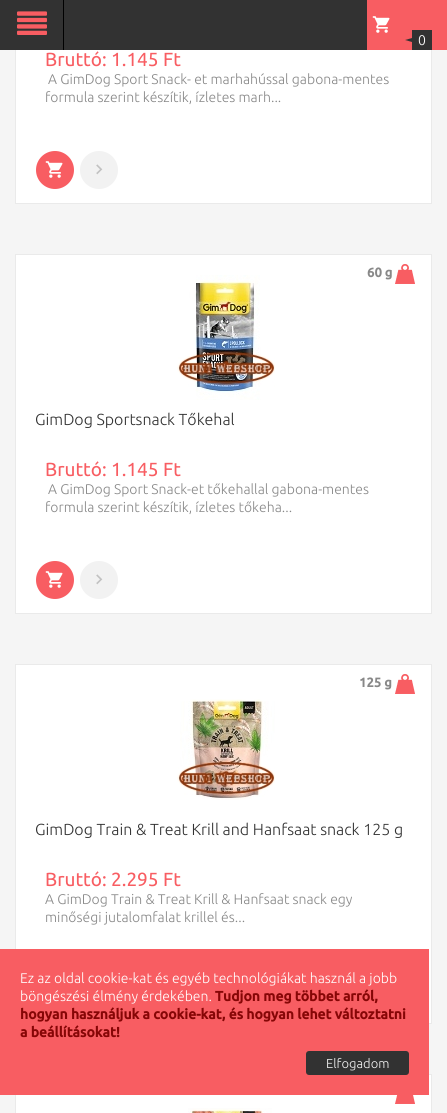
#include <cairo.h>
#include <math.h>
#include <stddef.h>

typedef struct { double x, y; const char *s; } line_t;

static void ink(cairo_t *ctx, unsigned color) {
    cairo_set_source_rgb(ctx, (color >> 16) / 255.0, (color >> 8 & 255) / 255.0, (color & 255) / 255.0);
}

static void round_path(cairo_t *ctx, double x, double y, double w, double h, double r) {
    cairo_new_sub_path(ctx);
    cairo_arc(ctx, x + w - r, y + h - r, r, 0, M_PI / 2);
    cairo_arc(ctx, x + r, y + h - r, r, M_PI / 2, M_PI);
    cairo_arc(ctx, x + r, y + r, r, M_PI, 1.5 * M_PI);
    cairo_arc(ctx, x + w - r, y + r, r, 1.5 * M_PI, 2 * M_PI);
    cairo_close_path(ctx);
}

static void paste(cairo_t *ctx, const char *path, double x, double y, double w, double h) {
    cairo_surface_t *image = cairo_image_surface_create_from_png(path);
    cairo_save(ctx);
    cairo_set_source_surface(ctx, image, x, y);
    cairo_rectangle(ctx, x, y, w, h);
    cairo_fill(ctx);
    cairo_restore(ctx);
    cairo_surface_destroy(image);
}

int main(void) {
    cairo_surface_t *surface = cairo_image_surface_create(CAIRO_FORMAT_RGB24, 447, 1113);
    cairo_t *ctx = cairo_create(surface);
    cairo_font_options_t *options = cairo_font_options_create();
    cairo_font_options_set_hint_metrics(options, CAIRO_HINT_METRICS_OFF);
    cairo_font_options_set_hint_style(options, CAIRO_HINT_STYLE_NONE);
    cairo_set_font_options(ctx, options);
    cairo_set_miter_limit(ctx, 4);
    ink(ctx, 0xF5F5F5);
    cairo_paint(ctx);
    ink(ctx, 0xFFFFFF);
    cairo_rectangle(ctx, 16, 50, 415, 153);
    cairo_fill(ctx);
    cairo_rectangle(ctx, 15.5, -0.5, 416, 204);
    ink(ctx, 0xEAEAEA);
    cairo_set_line_width(ctx, 1);
    cairo_stroke(ctx);
    ink(ctx, 0x323232);
    cairo_rectangle(ctx, 0, 0, 367, 50);
    cairo_fill(ctx);
    ink(ctx, 0x000000);
    cairo_rectangle(ctx, 63, 0, 1, 50);
    cairo_fill(ctx);
    paste(ctx, "media/1.png", 17, 11, 30, 24);
    ink(ctx, 0xF85D62);
    cairo_rectangle(ctx, 367, 0, 80, 50);
    cairo_fill(ctx);
    paste(ctx, "media/2.png", 372, 16, 18, 17);
    ink(ctx, 0x323232);
    cairo_rectangle(ctx, 412, 30, 20, 20);
    cairo_fill(ctx);
    cairo_new_path(ctx);
    cairo_move_to(ctx, 412, 38);
    cairo_line_to(ctx, 412, 42);
    cairo_line_to(ctx, 405, 40);
    cairo_close_path(ctx);
    cairo_fill(ctx);
    cairo_select_font_face(ctx, "Ubuntu Light", CAIRO_FONT_SLANT_NORMAL, CAIRO_FONT_WEIGHT_NORMAL);
    cairo_set_font_size(ctx, 14);
    ink(ctx, 0xFFFFFF);
    cairo_move_to(ctx, 418, 45);
    cairo_show_text(ctx, "0");
    cairo_select_font_face(ctx, "Ubuntu", CAIRO_FONT_SLANT_NORMAL, CAIRO_FONT_WEIGHT_NORMAL);
    cairo_set_font_size(ctx, 19);
    ink(ctx, 0xF85D62);
    cairo_move_to(ctx, 45, 66);
    cairo_show_text(ctx, "Bruttó: 1.145 Ft");
    cairo_select_font_face(ctx, "Ubuntu Light", CAIRO_FONT_SLANT_NORMAL, CAIRO_FONT_WEIGHT_NORMAL);
    cairo_set_font_size(ctx, 14);
    ink(ctx, 0x888888);
    cairo_move_to(ctx, 48, 84);
    cairo_show_text(ctx, "A GimDog Sport Snack- et marhahússal gabona-mentes");
    cairo_move_to(ctx, 45, 102);
    cairo_show_text(ctx, "formula szerint készítik, ízletes marh...");
    ink(ctx, 0xF85D62);
    cairo_new_path(ctx);
    cairo_arc(ctx, 55, 170, 19, 0, 2 * M_PI);
    cairo_fill(ctx);
    paste(ctx, "media/2.png", 45, 161, 18, 17);
    ink(ctx, 0xF2F2F2);
    cairo_arc(ctx, 99, 170, 19, 0, 2 * M_PI);
    cairo_fill(ctx);
    paste(ctx, "media/3.png", 96, 164, 7, 11);
    ink(ctx, 0xFFFFFF);
    cairo_rectangle(ctx, 15.5, 254.5, 416, 359);
    cairo_fill_preserve(ctx);
    ink(ctx, 0xEAEAEA);
    cairo_stroke(ctx);
    cairo_select_font_face(ctx, "Ubuntu", CAIRO_FONT_SLANT_NORMAL, CAIRO_FONT_WEIGHT_BOLD);
    cairo_set_font_size(ctx, 13);
    ink(ctx, 0x888888);
    cairo_move_to(ctx, 367, 277);
    cairo_show_text(ctx, "60 g");
    paste(ctx, "media/4.png", 395, 264, 20, 20);
    paste(ctx, "media/5.png", 177, 275, 98, 125);
    cairo_select_font_face(ctx, "Ubuntu Light", CAIRO_FONT_SLANT_NORMAL, CAIRO_FONT_WEIGHT_NORMAL);
    cairo_set_font_size(ctx, 16);
    ink(ctx, 0x323232);
    cairo_move_to(ctx, 35, 425);
    cairo_show_text(ctx, "GimDog Sportsnack Tőkehal");
    cairo_select_font_face(ctx, "Ubuntu", CAIRO_FONT_SLANT_NORMAL, CAIRO_FONT_WEIGHT_NORMAL);
    cairo_set_font_size(ctx, 19);
    ink(ctx, 0xF85D62);
    cairo_move_to(ctx, 45, 476);
    cairo_show_text(ctx, "Bruttó: 1.145 Ft");
    cairo_select_font_face(ctx, "Ubuntu Light", CAIRO_FONT_SLANT_NORMAL, CAIRO_FONT_WEIGHT_NORMAL);
    cairo_set_font_size(ctx, 14);
    ink(ctx, 0x888888);
    cairo_move_to(ctx, 48, 494);
    cairo_show_text(ctx, "A GimDog Sport Snack-et tőkehallal gabona-mentes");
    cairo_move_to(ctx, 45, 512);
    cairo_show_text(ctx, "formula szerint készítik, ízletes tőkeha...");
    ink(ctx, 0xF85D62);
    cairo_new_path(ctx);
    cairo_arc(ctx, 55, 580, 19, 0, 2 * M_PI);
    cairo_fill(ctx);
    paste(ctx, "media/2.png", 45, 571, 18, 17);
    ink(ctx, 0xF2F2F2);
    cairo_arc(ctx, 99, 580, 19, 0, 2 * M_PI);
    cairo_fill(ctx);
    paste(ctx, "media/3.png", 96, 574, 7, 11);
    ink(ctx, 0xFFFFFF);
    cairo_rectangle(ctx, 15.5, 664.5, 416, 359);
    cairo_fill_preserve(ctx);
    ink(ctx, 0xEAEAEA);
    cairo_stroke(ctx);
    cairo_select_font_face(ctx, "Ubuntu", CAIRO_FONT_SLANT_NORMAL, CAIRO_FONT_WEIGHT_BOLD);
    cairo_set_font_size(ctx, 13);
    ink(ctx, 0x888888);
    cairo_move_to(ctx, 359, 687);
    cairo_show_text(ctx, "125 g");
    paste(ctx, "media/4.png", 395, 674, 20, 20);
    paste(ctx, "media/6.png", 177, 699, 98, 101);
    cairo_select_font_face(ctx, "Ubuntu Light", CAIRO_FONT_SLANT_NORMAL, CAIRO_FONT_WEIGHT_NORMAL);
    cairo_set_font_size(ctx, 16);
    ink(ctx, 0x323232);
    cairo_move_to(ctx, 35, 835);
    cairo_show_text(ctx, "GimDog Train & Treat Krill and Hanfsaat snack 125 g");
    cairo_select_font_face(ctx, "Ubuntu", CAIRO_FONT_SLANT_NORMAL, CAIRO_FONT_WEIGHT_NORMAL);
    cairo_set_font_size(ctx, 19);
    ink(ctx, 0xF85D62);
    cairo_move_to(ctx, 45, 886);
    cairo_show_text(ctx, "Bruttó: 2.295 Ft");
    cairo_select_font_face(ctx, "Ubuntu Light", CAIRO_FONT_SLANT_NORMAL, CAIRO_FONT_WEIGHT_NORMAL);
    cairo_set_font_size(ctx, 14);
    ink(ctx, 0x888888);
    cairo_move_to(ctx, 45, 904);
    cairo_show_text(ctx, "A GimDog Train & Treat Krill & Hanfsaat snack egy");
    cairo_move_to(ctx, 45, 922);
    cairo_show_text(ctx, "minőségi jutalomfalat krillel és...");
    ink(ctx, 0xFFFFFF);
    cairo_rectangle(ctx, 15.5, 1074.5, 416, 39);
    cairo_fill_preserve(ctx);
    ink(ctx, 0xEAEAEA);
    cairo_stroke(ctx);
    paste(ctx, "media/7.png", 395, 1095, 20, 9);
    paste(ctx, "media/8.png", 188, 1108, 84, 5);
    ink(ctx, 0xF85D62);
    cairo_rectangle(ctx, 0, 949, 429, 146);
    cairo_fill(ctx);
    ink(ctx, 0xFFFFFF);
    cairo_move_to(ctx, 20, 983);
    cairo_show_text(ctx, "Ez az oldal cookie-kat és egyéb technológiákat használ a jobb");
    cairo_move_to(ctx, 20, 1001);
    cairo_show_text(ctx, "böngészési élmény érdekében.");
    cairo_select_font_face(ctx, "Ubuntu", CAIRO_FONT_SLANT_NORMAL, CAIRO_FONT_WEIGHT_BOLD);
    ink(ctx, 0x860606);
    {
        static const line_t items[] = {
            {215, 1001, "Tudjon meg többet arról,"},
            {20, 1019, "hogyan használjuk a cookie-kat, és hogyan lehet változtatni"},
            {20, 1037, "a beállításokat!"},
        };
        for (size_t i = 0; i < sizeof items / sizeof *items; i++) {
            cairo_move_to(ctx, items[i].x, items[i].y);
            cairo_show_text(ctx, items[i].s);
        }
    }
    ink(ctx, 0x323232);
    round_path(ctx, 306, 1051, 103, 24, 3);
    cairo_fill(ctx);
    cairo_select_font_face(ctx, "Ubuntu Light", CAIRO_FONT_SLANT_NORMAL, CAIRO_FONT_WEIGHT_NORMAL);
    cairo_set_font_size(ctx, 13);
    ink(ctx, 0xF5F5F5);
    cairo_move_to(ctx, 326, 1068);
    cairo_show_text(ctx, "Elfogadom");
    cairo_surface_write_to_png(surface, "image.png");
    cairo_font_options_destroy(options);
    cairo_destroy(ctx);
    cairo_surface_destroy(surface);
    return 0;
}
